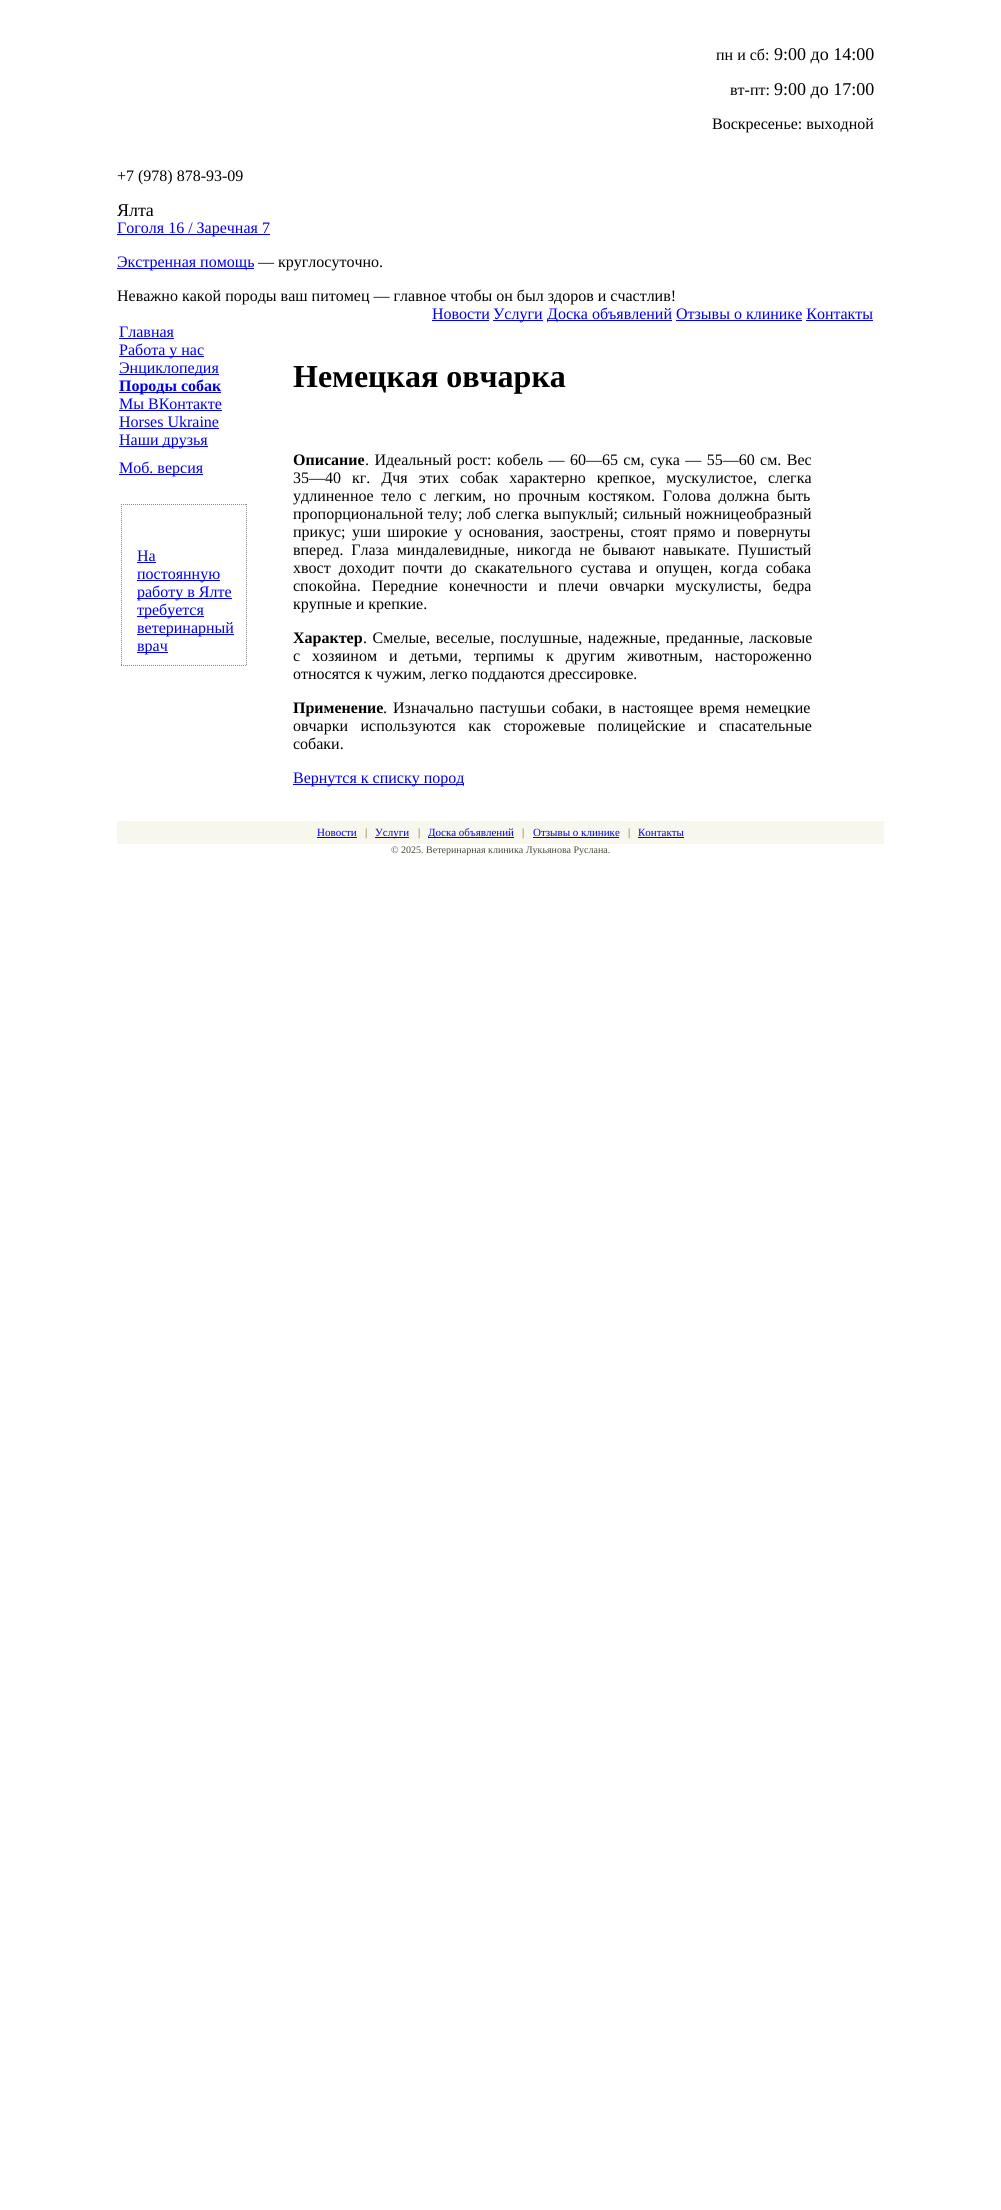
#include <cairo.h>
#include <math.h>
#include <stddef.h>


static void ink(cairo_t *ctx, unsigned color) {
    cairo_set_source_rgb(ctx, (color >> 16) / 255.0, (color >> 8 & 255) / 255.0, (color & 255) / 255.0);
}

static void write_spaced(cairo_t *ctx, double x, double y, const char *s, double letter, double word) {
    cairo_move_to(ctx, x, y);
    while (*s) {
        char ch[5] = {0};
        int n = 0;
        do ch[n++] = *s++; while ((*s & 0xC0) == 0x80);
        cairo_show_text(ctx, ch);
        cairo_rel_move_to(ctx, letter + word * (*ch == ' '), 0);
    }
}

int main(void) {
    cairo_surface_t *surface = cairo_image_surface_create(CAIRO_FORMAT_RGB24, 1001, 2210);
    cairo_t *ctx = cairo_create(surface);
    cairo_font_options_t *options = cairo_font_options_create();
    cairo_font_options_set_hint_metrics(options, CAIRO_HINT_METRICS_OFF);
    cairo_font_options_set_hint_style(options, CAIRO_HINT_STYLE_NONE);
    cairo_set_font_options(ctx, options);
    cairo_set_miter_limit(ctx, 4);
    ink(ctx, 0xFFFFFF);
    cairo_paint(ctx);
    cairo_select_font_face(ctx, "Liberation Serif", CAIRO_FONT_SLANT_NORMAL, CAIRO_FONT_WEIGHT_NORMAL);
    cairo_set_font_size(ctx, 16);
    ink(ctx, 0x000000);
    cairo_move_to(ctx, 716, 60);
    cairo_show_text(ctx, "пн и сб:");
    cairo_set_font_size(ctx, 18);
    cairo_move_to(ctx, 774, 60);
    cairo_show_text(ctx, "9:00 до 14:00");
    cairo_set_font_size(ctx, 16);
    cairo_move_to(ctx, 730, 95);
    cairo_show_text(ctx, "вт-пт:");
    cairo_set_font_size(ctx, 18);
    cairo_move_to(ctx, 774, 95);
    cairo_show_text(ctx, "9:00 до 17:00");
    cairo_set_font_size(ctx, 16);
    cairo_move_to(ctx, 712, 129);
    cairo_show_text(ctx, "Воскресенье: выходной");
    cairo_move_to(ctx, 117, 181);
    cairo_show_text(ctx, "+7 (978) 878-93-09");
    cairo_set_font_size(ctx, 18);
    cairo_move_to(ctx, 117, 216);
    cairo_show_text(ctx, "Ялта");
    ink(ctx, 0x0000EE);
    cairo_rectangle(ctx, 117, 234, 153, 1);
    cairo_fill(ctx);
    cairo_set_font_size(ctx, 16);
    cairo_move_to(ctx, 117, 233);
    cairo_show_text(ctx, "Гоголя 16 / Заречная 7");
    cairo_rectangle(ctx, 117, 268, 137, 1);
    cairo_fill(ctx);
    cairo_move_to(ctx, 117, 267);
    cairo_show_text(ctx, "Экстренная помощь");
    ink(ctx, 0x000000);
    cairo_move_to(ctx, 258, 267);
    cairo_show_text(ctx, "— круглосуточно.");
    cairo_move_to(ctx, 117, 301);
    cairo_show_text(ctx, "Неважно какой породы ваш питомец — главное чтобы он был здоров и счастлив!");
    ink(ctx, 0x0000EE);
    cairo_move_to(ctx, 432, 319);
    cairo_show_text(ctx, "Новости");
    cairo_rectangle(ctx, 432, 320, 57, 1);
    cairo_fill(ctx);
    cairo_rectangle(ctx, 493, 320, 50, 1);
    cairo_fill(ctx);
    cairo_move_to(ctx, 493, 319);
    cairo_show_text(ctx, "Услуги");
    cairo_rectangle(ctx, 547, 320, 125, 1);
    cairo_fill(ctx);
    cairo_move_to(ctx, 547, 319);
    cairo_show_text(ctx, "Доска объявлений Отзывы о клинике Контакты");
    cairo_rectangle(ctx, 676, 320, 126, 1);
    cairo_fill(ctx);
    cairo_rectangle(ctx, 806, 320, 67, 1);
    cairo_fill(ctx);
    cairo_move_to(ctx, 119, 337);
    cairo_show_text(ctx, "Главная");
    cairo_rectangle(ctx, 119, 338, 55, 1);
    cairo_fill(ctx);
    cairo_rectangle(ctx, 119, 356, 85, 1);
    cairo_fill(ctx);
    cairo_move_to(ctx, 119, 355);
    cairo_show_text(ctx, "Работа у нас");
    cairo_rectangle(ctx, 119, 374, 100, 1);
    cairo_fill(ctx);
    cairo_move_to(ctx, 119, 373);
    cairo_show_text(ctx, "Энциклопедия");
    cairo_rectangle(ctx, 119, 392, 102, 1);
    cairo_fill(ctx);
    cairo_select_font_face(ctx, "Liberation Serif", CAIRO_FONT_SLANT_NORMAL, CAIRO_FONT_WEIGHT_BOLD);
    cairo_move_to(ctx, 119, 391);
    cairo_show_text(ctx, "Породы собак");
    cairo_select_font_face(ctx, "Liberation Serif", CAIRO_FONT_SLANT_NORMAL, CAIRO_FONT_WEIGHT_NORMAL);
    cairo_move_to(ctx, 119, 409);
    cairo_show_text(ctx, "Мы ВКонтакте");
    cairo_rectangle(ctx, 119, 410, 103, 1);
    cairo_fill(ctx);
    cairo_move_to(ctx, 119, 427);
    cairo_show_text(ctx, "Horses Ukraine");
    cairo_rectangle(ctx, 119, 428, 100, 1);
    cairo_fill(ctx);
    cairo_rectangle(ctx, 119, 446, 89, 1);
    cairo_fill(ctx);
    cairo_move_to(ctx, 119, 445);
    cairo_show_text(ctx, "Наши друзья");
    cairo_rectangle(ctx, 119, 474, 84, 1);
    cairo_fill(ctx);
    cairo_move_to(ctx, 119, 473);
    cairo_show_text(ctx, "Моб. версия");
    cairo_new_path(ctx);
    cairo_move_to(ctx, 121, 504.5);
    cairo_line_to(ctx, 247, 504.5);
    ink(ctx, 0x8A8A8A);
    cairo_set_line_width(ctx, 1);
    cairo_set_dash(ctx, (double[]){1, 1}, 2, 0);
    cairo_stroke(ctx);
    cairo_new_path(ctx);
    cairo_move_to(ctx, 246.5, 504);
    cairo_line_to(ctx, 246.5, 666);
    cairo_stroke(ctx);
    cairo_new_path(ctx);
    cairo_move_to(ctx, 121, 665.5);
    cairo_line_to(ctx, 247, 665.5);
    cairo_stroke(ctx);
    cairo_new_path(ctx);
    cairo_move_to(ctx, 121.5, 504);
    cairo_line_to(ctx, 121.5, 666);
    cairo_stroke(ctx);
    ink(ctx, 0x0000EE);
    cairo_move_to(ctx, 137, 561);
    cairo_show_text(ctx, "На");
    cairo_rectangle(ctx, 137, 562, 19, 1);
    cairo_fill(ctx);
    cairo_rectangle(ctx, 137, 580, 83, 1);
    cairo_fill(ctx);
    cairo_move_to(ctx, 137, 579);
    cairo_show_text(ctx, "постоянную");
    cairo_rectangle(ctx, 137, 598, 95, 1);
    cairo_fill(ctx);
    cairo_move_to(ctx, 137, 597);
    cairo_show_text(ctx, "работу в Ялте");
    cairo_rectangle(ctx, 137, 616, 67, 1);
    cairo_fill(ctx);
    cairo_move_to(ctx, 137, 615);
    cairo_show_text(ctx, "требуется");
    cairo_rectangle(ctx, 137, 634, 97, 1);
    cairo_fill(ctx);
    cairo_move_to(ctx, 137, 633);
    cairo_show_text(ctx, "ветеринарный");
    cairo_rectangle(ctx, 137, 652, 31, 1);
    cairo_fill(ctx);
    cairo_move_to(ctx, 137, 651);
    cairo_show_text(ctx, "врач");
    cairo_select_font_face(ctx, "Liberation Serif", CAIRO_FONT_SLANT_NORMAL, CAIRO_FONT_WEIGHT_BOLD);
    cairo_set_font_size(ctx, 32);
    ink(ctx, 0x000000);
    cairo_move_to(ctx, 293, 387);
    cairo_show_text(ctx, "Немецкая овчарка");
    cairo_set_font_size(ctx, 16);
    cairo_move_to(ctx, 293, 465);
    cairo_show_text(ctx, "Описание");
    cairo_select_font_face(ctx, "Liberation Serif", CAIRO_FONT_SLANT_NORMAL, CAIRO_FONT_WEIGHT_NORMAL);
    write_spaced(ctx, 365, 465, ". Идеальный рост: кобель — 60—65 см, сука — 55—60 см. Вес", 0, 1.4);
    write_spaced(ctx, 293, 483, "35—40 кг. Дчя этих собак характерно крепкое, мускулистое, слегка", 0, 7);
    write_spaced(ctx, 293, 501, "удлиненное тело с легким, но прочным костяком. Голова должна быть", 0, 3.75);
    write_spaced(ctx, 293, 519, "пропорциональной телу; лоб слегка выпуклый; сильный ножницеобразный", 0, 0.5);
    write_spaced(ctx, 293, 537, "прикус; уши широкие у основания, заострены, стоят прямо и повернуты", 0, 2.5);
    write_spaced(ctx, 293, 555, "вперед. Глаза миндалевидные, никогда не бывают навыкате. Пушистый", 0, 3.75);
    write_spaced(ctx, 293, 573, "хвост доходит почти до скакательного сустава и опущен, когда собака", 0, 4);
    write_spaced(ctx, 293, 591, "спокойна. Передние конечности и плечи овчарки мускулисты, бедра", 0, 7);
    cairo_move_to(ctx, 293, 609);
    cairo_show_text(ctx, "крупные и крепкие.");
    cairo_select_font_face(ctx, "Liberation Serif", CAIRO_FONT_SLANT_NORMAL, CAIRO_FONT_WEIGHT_BOLD);
    cairo_move_to(ctx, 293, 643);
    cairo_show_text(ctx, "Характер");
    cairo_select_font_face(ctx, "Liberation Serif", CAIRO_FONT_SLANT_NORMAL, CAIRO_FONT_WEIGHT_NORMAL);
    write_spaced(ctx, 363, 643, ". Смелые, веселые, послушные, надежные, преданные, ласковые", 0, 1.5);
    write_spaced(ctx, 293, 661, "с хозяином и детьми, терпимы к другим животным, настороженно", 0, 8);
    cairo_move_to(ctx, 293, 679);
    cairo_show_text(ctx, "относятся к чужим, легко поддаются дрессировке.");
    cairo_select_font_face(ctx, "Liberation Serif", CAIRO_FONT_SLANT_NORMAL, CAIRO_FONT_WEIGHT_BOLD);
    cairo_move_to(ctx, 293, 713);
    cairo_show_text(ctx, "Применение");
    cairo_select_font_face(ctx, "Liberation Serif", CAIRO_FONT_SLANT_NORMAL, CAIRO_FONT_WEIGHT_NORMAL);
    write_spaced(ctx, 383, 713, ". Изначально пастушьи собаки, в настоящее время немецкие", 0, 2);
    write_spaced(ctx, 293, 731, "овчарки используются как сторожевые полицейские и спасательные", 0, 8.5);
    cairo_move_to(ctx, 293, 749);
    cairo_show_text(ctx, "собаки.");
    ink(ctx, 0x0000EE);
    cairo_rectangle(ctx, 293, 784, 171, 1);
    cairo_fill(ctx);
    cairo_move_to(ctx, 293, 783);
    cairo_show_text(ctx, "Вернутся к списку пород");
    ink(ctx, 0xF7F7EE);
    cairo_rectangle(ctx, 117, 821, 767, 23);
    cairo_fill(ctx);
    cairo_set_font_size(ctx, 11);
    ink(ctx, 0x0000EE);
    cairo_move_to(ctx, 317, 836);
    cairo_show_text(ctx, "Новости");
    cairo_rectangle(ctx, 317, 837, 40, 1);
    cairo_fill(ctx);
    ink(ctx, 0x72550F);
    cairo_move_to(ctx, 365, 836);
    cairo_show_text(ctx, "|");
    ink(ctx, 0x0000EE);
    cairo_rectangle(ctx, 375, 837, 34, 1);
    cairo_fill(ctx);
    cairo_move_to(ctx, 375, 836);
    cairo_show_text(ctx, "Услуги");
    ink(ctx, 0x72550F);
    cairo_move_to(ctx, 418, 836);
    cairo_show_text(ctx, "|");
    ink(ctx, 0x0000EE);
    cairo_rectangle(ctx, 428, 837, 86, 1);
    cairo_fill(ctx);
    cairo_move_to(ctx, 428, 836);
    cairo_show_text(ctx, "Доска объявлений");
    ink(ctx, 0x72550F);
    cairo_move_to(ctx, 522, 836);
    cairo_show_text(ctx, "|");
    ink(ctx, 0x0000EE);
    cairo_move_to(ctx, 533, 836);
    cairo_show_text(ctx, "Отзывы о клинике");
    cairo_rectangle(ctx, 533, 837, 86, 1);
    cairo_fill(ctx);
    ink(ctx, 0x72550F);
    cairo_move_to(ctx, 628, 836);
    cairo_show_text(ctx, "|");
    ink(ctx, 0x0000EE);
    cairo_move_to(ctx, 638, 836);
    cairo_show_text(ctx, "Контакты");
    cairo_rectangle(ctx, 638, 837, 46, 1);
    cairo_fill(ctx);
    cairo_set_font_size(ctx, 10);
    ink(ctx, 0x484836);
    cairo_move_to(ctx, 391, 853);
    cairo_show_text(ctx, "© 2025. Ветеринарная клиника Лукьянова Руслана.");
    cairo_surface_write_to_png(surface, "image.png");
    cairo_font_options_destroy(options);
    cairo_destroy(ctx);
    cairo_surface_destroy(surface);
    return 0;
}
